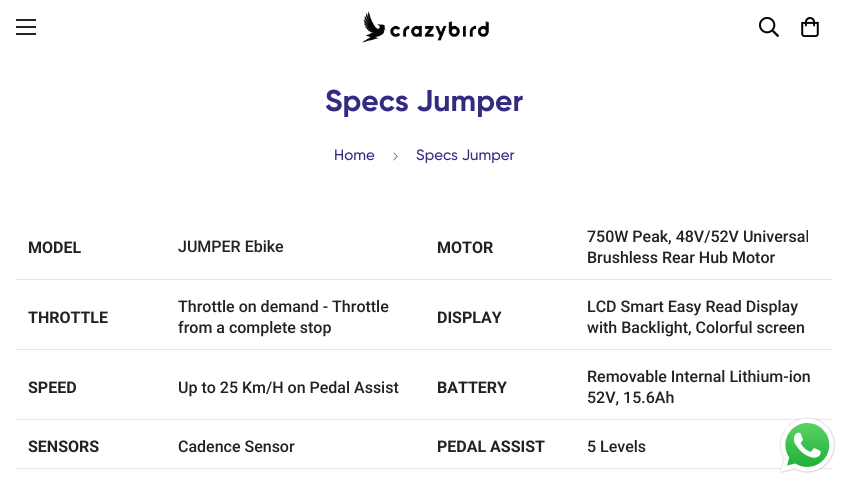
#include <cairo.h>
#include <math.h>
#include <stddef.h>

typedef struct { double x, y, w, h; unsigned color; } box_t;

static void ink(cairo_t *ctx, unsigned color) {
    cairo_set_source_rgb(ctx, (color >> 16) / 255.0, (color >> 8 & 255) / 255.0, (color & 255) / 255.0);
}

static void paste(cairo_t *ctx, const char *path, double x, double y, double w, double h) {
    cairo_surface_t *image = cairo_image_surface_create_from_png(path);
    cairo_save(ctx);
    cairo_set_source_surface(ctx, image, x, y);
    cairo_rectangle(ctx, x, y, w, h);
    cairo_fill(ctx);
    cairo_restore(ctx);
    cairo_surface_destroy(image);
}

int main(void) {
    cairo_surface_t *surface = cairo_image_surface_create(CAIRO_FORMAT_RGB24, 849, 487);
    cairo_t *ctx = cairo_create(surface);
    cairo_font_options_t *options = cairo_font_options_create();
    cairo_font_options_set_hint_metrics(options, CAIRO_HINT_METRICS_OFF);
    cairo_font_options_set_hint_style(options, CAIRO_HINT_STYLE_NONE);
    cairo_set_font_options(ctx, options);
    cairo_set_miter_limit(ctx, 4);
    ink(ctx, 0xFFFFFF);
    cairo_paint(ctx);
    {
        static const box_t items[] = {
            {16, 26, 20, 2, 0x222222},
            {16, 19, 20, 2, 0x222222},
            {16, 33, 20, 2, 0x222222},
        };
        for (size_t i = 0; i < sizeof items / sizeof *items; i++) {
            ink(ctx, items[i].color);
            cairo_rectangle(ctx, items[i].x, items[i].y, items[i].w, items[i].h);
            cairo_fill(ctx);
        }
    }
    paste(ctx, "media/1.png", 362, 11, 127, 32);
    paste(ctx, "media/2.png", 759, 17, 20, 20);
    paste(ctx, "media/3.png", 801, 17, 18, 20);
    cairo_select_font_face(ctx, "Gilroy", CAIRO_FONT_SLANT_NORMAL, CAIRO_FONT_WEIGHT_BOLD);
    cairo_set_font_size(ctx, 30);
    ink(ctx, 0x322B81);
    cairo_move_to(ctx, 325, 111);
    cairo_show_text(ctx, "Specs Jumper");
    cairo_select_font_face(ctx, "Gilroy Medium", CAIRO_FONT_SLANT_NORMAL, CAIRO_FONT_WEIGHT_NORMAL);
    cairo_set_font_size(ctx, 15);
    cairo_move_to(ctx, 334, 160);
    cairo_show_text(ctx, "Home");
    paste(ctx, "media/4.png", 393, 152, 5, 9);
    cairo_move_to(ctx, 416, 160);
    cairo_show_text(ctx, "Specs Jumper");
    ink(ctx, 0xE6E6E6);
    cairo_rectangle(ctx, 16, 279, 817, 1);
    cairo_fill(ctx);
    cairo_select_font_face(ctx, "Roboto", CAIRO_FONT_SLANT_NORMAL, CAIRO_FONT_WEIGHT_BOLD);
    cairo_set_font_size(ctx, 16);
    ink(ctx, 0x222222);
    cairo_move_to(ctx, 28, 253);
    cairo_show_text(ctx, "MODEL");
    cairo_select_font_face(ctx, "Roboto Medium", CAIRO_FONT_SLANT_NORMAL, CAIRO_FONT_WEIGHT_NORMAL);
    cairo_move_to(ctx, 178, 252);
    cairo_show_text(ctx, "JUMPER Ebike");
    cairo_select_font_face(ctx, "Roboto", CAIRO_FONT_SLANT_NORMAL, CAIRO_FONT_WEIGHT_BOLD);
    cairo_move_to(ctx, 437, 253);
    cairo_show_text(ctx, "MOTOR");
    cairo_select_font_face(ctx, "Roboto Medium", CAIRO_FONT_SLANT_NORMAL, CAIRO_FONT_WEIGHT_NORMAL);
    cairo_move_to(ctx, 587, 242);
    cairo_show_text(ctx, "750W Peak, 48V/52V Universal");
    cairo_move_to(ctx, 587, 263);
    cairo_show_text(ctx, "Brushless Rear Hub Motor");
    ink(ctx, 0xE6E6E6);
    cairo_rectangle(ctx, 16, 349, 817, 1);
    cairo_fill(ctx);
    cairo_select_font_face(ctx, "Roboto", CAIRO_FONT_SLANT_NORMAL, CAIRO_FONT_WEIGHT_BOLD);
    ink(ctx, 0x222222);
    cairo_move_to(ctx, 28, 323);
    cairo_show_text(ctx, "THROTTLE");
    cairo_select_font_face(ctx, "Roboto Medium", CAIRO_FONT_SLANT_NORMAL, CAIRO_FONT_WEIGHT_NORMAL);
    cairo_move_to(ctx, 178, 312);
    cairo_show_text(ctx, "Throttle on demand - Throttle");
    cairo_move_to(ctx, 178, 333);
    cairo_show_text(ctx, "from a complete stop");
    cairo_select_font_face(ctx, "Roboto", CAIRO_FONT_SLANT_NORMAL, CAIRO_FONT_WEIGHT_BOLD);
    cairo_move_to(ctx, 437, 323);
    cairo_show_text(ctx, "DISPLAY");
    cairo_select_font_face(ctx, "Roboto Medium", CAIRO_FONT_SLANT_NORMAL, CAIRO_FONT_WEIGHT_NORMAL);
    cairo_move_to(ctx, 587, 312);
    cairo_show_text(ctx, "LCD Smart Easy Read Display");
    cairo_move_to(ctx, 587, 333);
    cairo_show_text(ctx, "with Backlight, Colorful screen");
    ink(ctx, 0xE6E6E6);
    cairo_rectangle(ctx, 16, 419, 817, 1);
    cairo_fill(ctx);
    cairo_select_font_face(ctx, "Roboto", CAIRO_FONT_SLANT_NORMAL, CAIRO_FONT_WEIGHT_BOLD);
    ink(ctx, 0x222222);
    cairo_move_to(ctx, 28, 393);
    cairo_show_text(ctx, "SPEED");
    cairo_select_font_face(ctx, "Roboto Medium", CAIRO_FONT_SLANT_NORMAL, CAIRO_FONT_WEIGHT_NORMAL);
    cairo_move_to(ctx, 178, 393);
    cairo_show_text(ctx, "Up to 25 Km/H on Pedal Assist");
    cairo_select_font_face(ctx, "Roboto", CAIRO_FONT_SLANT_NORMAL, CAIRO_FONT_WEIGHT_BOLD);
    cairo_move_to(ctx, 437, 393);
    cairo_show_text(ctx, "BATTERY");
    cairo_select_font_face(ctx, "Roboto Medium", CAIRO_FONT_SLANT_NORMAL, CAIRO_FONT_WEIGHT_NORMAL);
    cairo_move_to(ctx, 587, 382);
    cairo_show_text(ctx, "Removable Internal Lithium-ion");
    cairo_move_to(ctx, 587, 403);
    cairo_show_text(ctx, "52V, 15.6Ah");
    ink(ctx, 0xE6E6E6);
    cairo_rectangle(ctx, 16, 468, 817, 1);
    cairo_fill(ctx);
    cairo_select_font_face(ctx, "Roboto", CAIRO_FONT_SLANT_NORMAL, CAIRO_FONT_WEIGHT_BOLD);
    ink(ctx, 0x222222);
    cairo_move_to(ctx, 28, 452);
    cairo_show_text(ctx, "SENSORS");
    cairo_select_font_face(ctx, "Roboto Medium", CAIRO_FONT_SLANT_NORMAL, CAIRO_FONT_WEIGHT_NORMAL);
    cairo_move_to(ctx, 178, 452);
    cairo_show_text(ctx, "Cadence Sensor");
    cairo_select_font_face(ctx, "Roboto", CAIRO_FONT_SLANT_NORMAL, CAIRO_FONT_WEIGHT_BOLD);
    cairo_move_to(ctx, 437, 452);
    cairo_show_text(ctx, "PEDAL ASSIST");
    cairo_select_font_face(ctx, "Roboto Medium", CAIRO_FONT_SLANT_NORMAL, CAIRO_FONT_WEIGHT_NORMAL);
    cairo_move_to(ctx, 587, 452);
    cairo_show_text(ctx, "5 Levels");
    paste(ctx, "media/5.png", 779, 417, 57, 57);
    cairo_surface_write_to_png(surface, "image.png");
    cairo_font_options_destroy(options);
    cairo_destroy(ctx);
    cairo_surface_destroy(surface);
    return 0;
}
